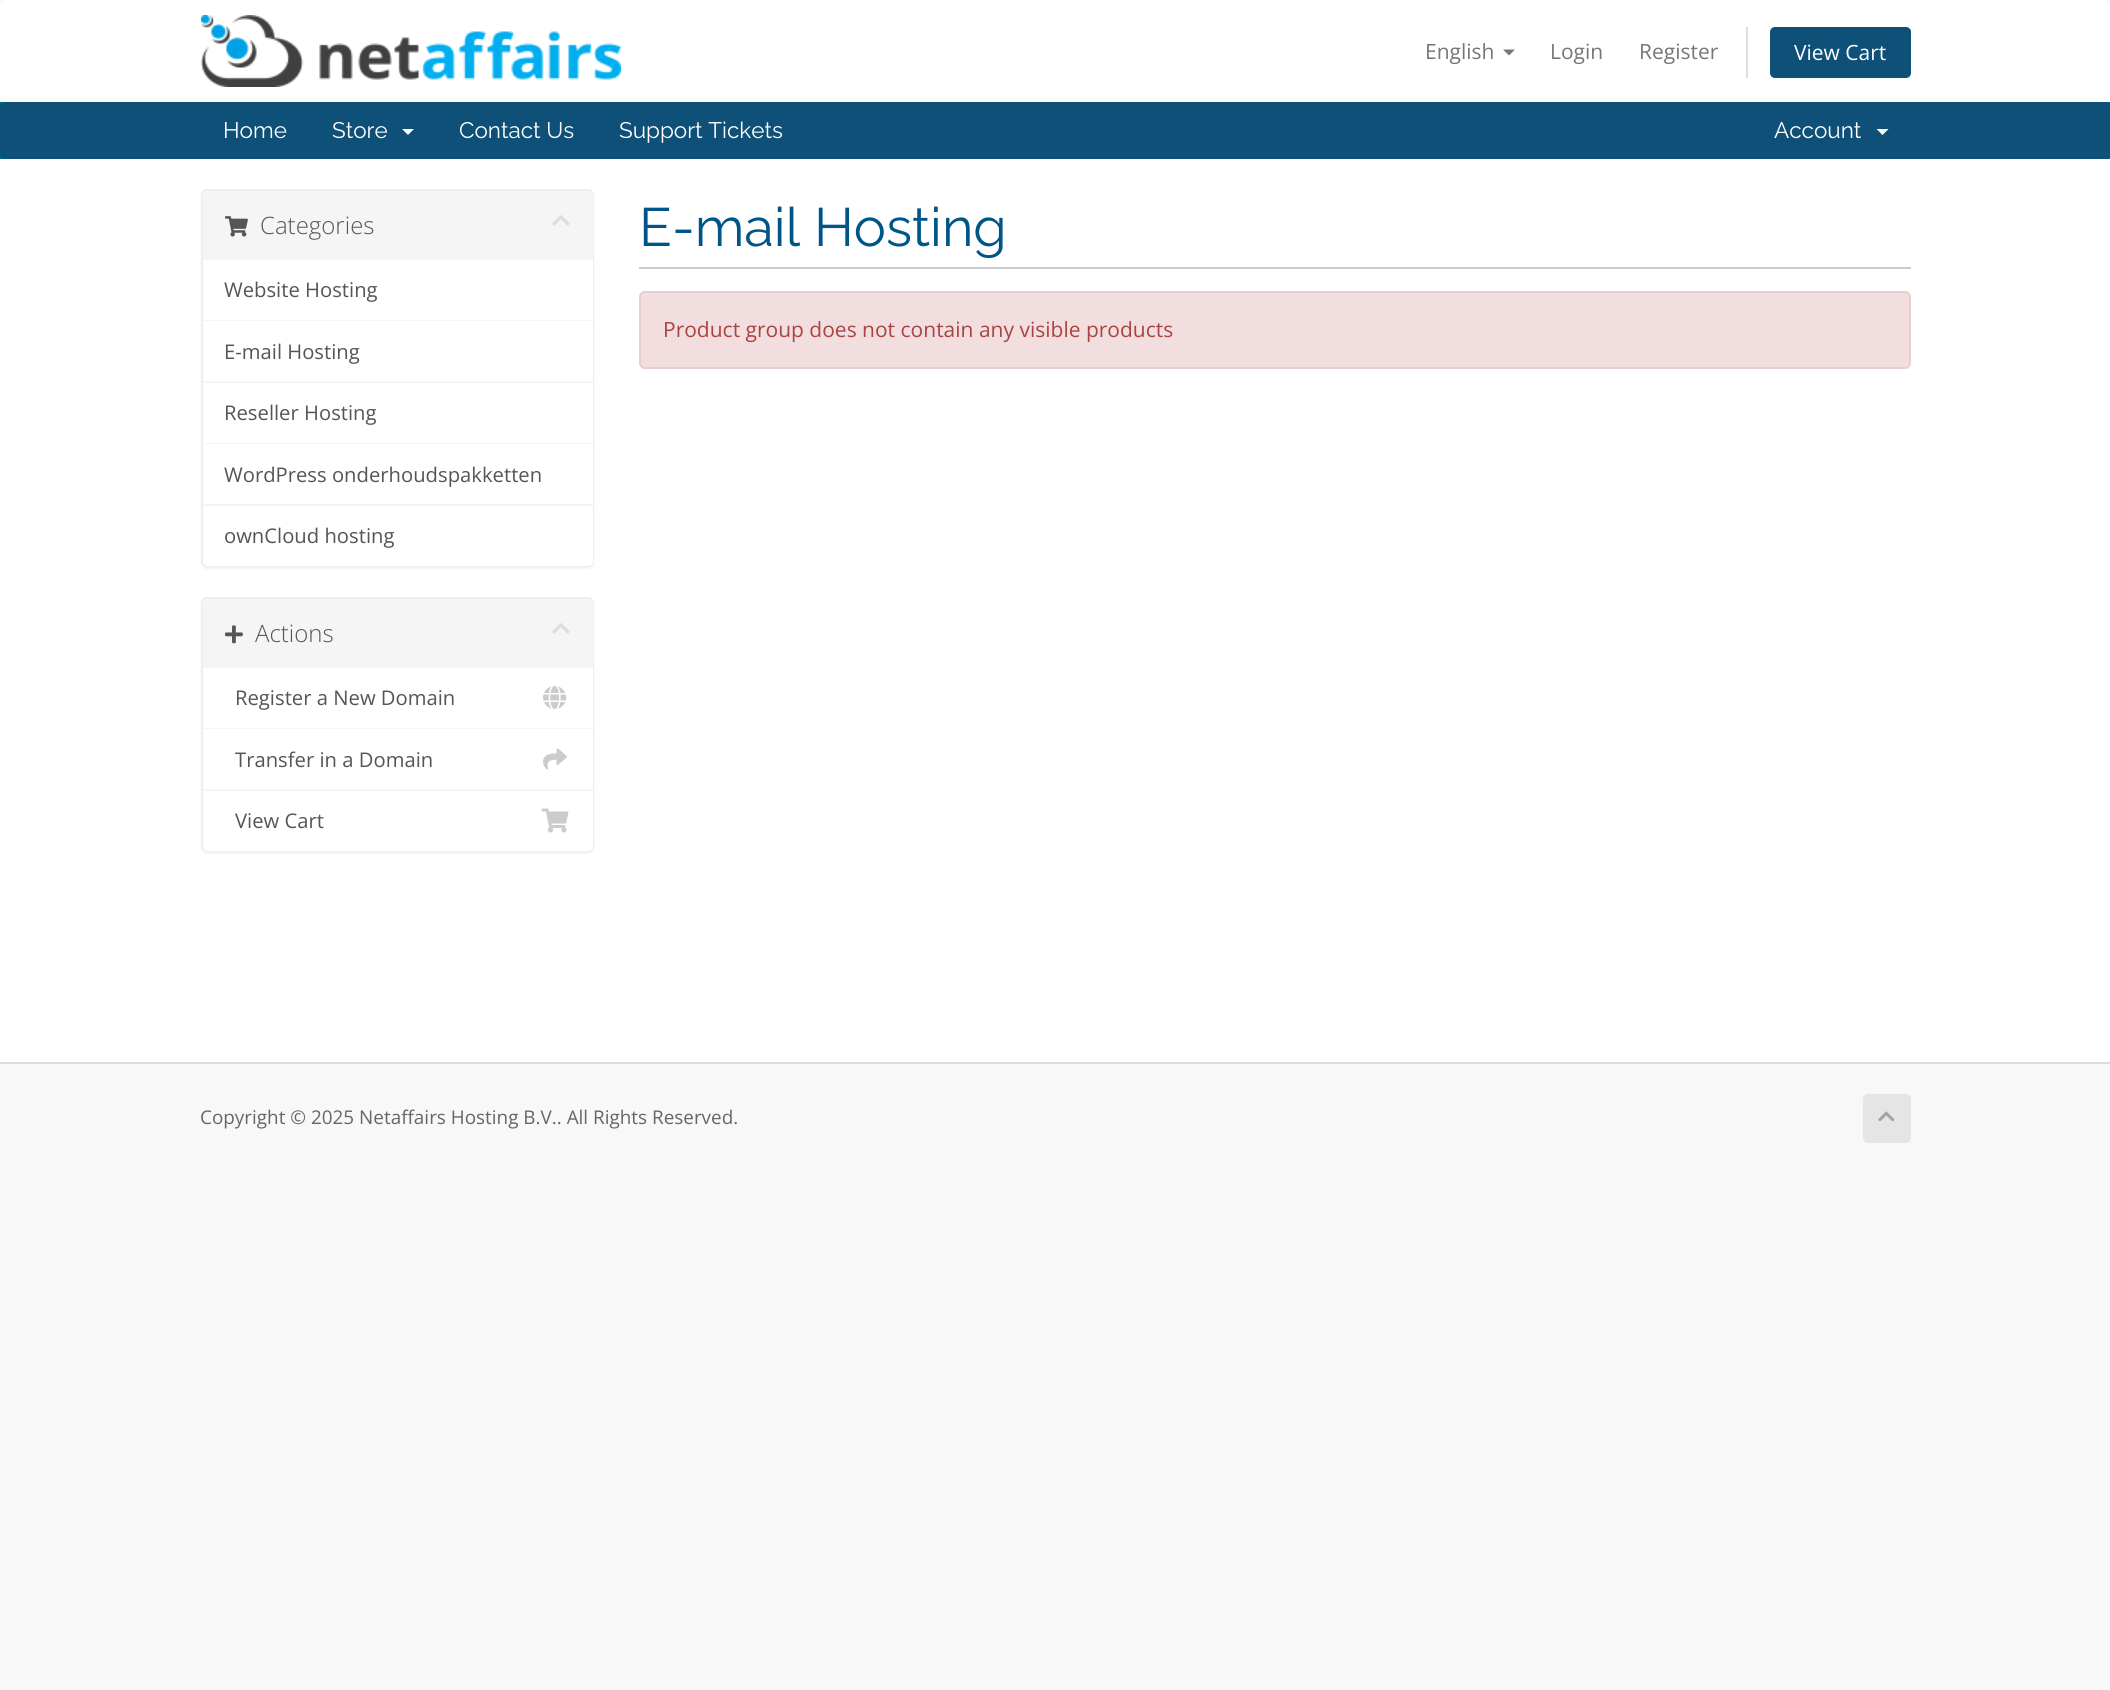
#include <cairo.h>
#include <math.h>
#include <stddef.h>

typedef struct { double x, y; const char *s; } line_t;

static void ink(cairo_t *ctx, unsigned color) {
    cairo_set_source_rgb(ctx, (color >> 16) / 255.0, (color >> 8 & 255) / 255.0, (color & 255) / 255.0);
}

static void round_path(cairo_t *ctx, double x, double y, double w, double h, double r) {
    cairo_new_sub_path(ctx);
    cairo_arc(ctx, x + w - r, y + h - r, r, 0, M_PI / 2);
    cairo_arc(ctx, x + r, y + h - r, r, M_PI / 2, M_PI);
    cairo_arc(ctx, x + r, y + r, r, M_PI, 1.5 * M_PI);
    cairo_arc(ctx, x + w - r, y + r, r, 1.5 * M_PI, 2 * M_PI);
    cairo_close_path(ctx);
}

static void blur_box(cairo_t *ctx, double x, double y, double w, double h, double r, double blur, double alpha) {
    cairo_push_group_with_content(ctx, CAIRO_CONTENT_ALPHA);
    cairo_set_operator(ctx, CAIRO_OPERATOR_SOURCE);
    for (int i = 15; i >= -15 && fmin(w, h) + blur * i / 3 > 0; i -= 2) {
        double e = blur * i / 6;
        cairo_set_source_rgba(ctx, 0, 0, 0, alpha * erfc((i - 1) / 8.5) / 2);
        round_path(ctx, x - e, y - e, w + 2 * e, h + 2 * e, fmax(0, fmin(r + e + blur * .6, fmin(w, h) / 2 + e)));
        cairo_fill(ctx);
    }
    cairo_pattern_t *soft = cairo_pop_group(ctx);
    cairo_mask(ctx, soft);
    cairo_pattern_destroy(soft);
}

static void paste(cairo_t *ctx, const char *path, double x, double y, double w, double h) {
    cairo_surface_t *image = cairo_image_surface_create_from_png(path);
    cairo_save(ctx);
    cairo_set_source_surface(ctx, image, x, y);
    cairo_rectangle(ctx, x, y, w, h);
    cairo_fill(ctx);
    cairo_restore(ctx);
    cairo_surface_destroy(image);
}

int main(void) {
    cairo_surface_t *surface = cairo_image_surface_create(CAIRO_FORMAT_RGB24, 2110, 1690);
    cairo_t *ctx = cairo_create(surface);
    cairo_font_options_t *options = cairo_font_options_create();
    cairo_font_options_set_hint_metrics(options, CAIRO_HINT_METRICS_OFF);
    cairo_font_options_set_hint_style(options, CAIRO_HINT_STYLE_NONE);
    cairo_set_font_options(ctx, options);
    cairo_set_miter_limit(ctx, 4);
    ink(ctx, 0xF8F8F8);
    cairo_paint(ctx);
    ink(ctx, 0xFFFFFF);
    cairo_new_path(ctx);
    cairo_move_to(ctx, 8, 0);
    cairo_line_to(ctx, 2103, 0);
    cairo_curve_to(ctx, 2107.5, 0, 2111, 3.5, 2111, 8);
    cairo_line_to(ctx, 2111, 102);
    cairo_line_to(ctx, 0, 102);
    cairo_line_to(ctx, 0, 8);
    cairo_curve_to(ctx, 0, 3.5, 3.5, 0, 8, 0);
    cairo_close_path(ctx);
    cairo_fill(ctx);
    paste(ctx, "media/1.png", 201, 15, 420, 72);
    cairo_select_font_face(ctx, "Open Sans", CAIRO_FONT_SLANT_NORMAL, CAIRO_FONT_WEIGHT_NORMAL);
    cairo_set_font_size(ctx, 21);
    ink(ctx, 0x777777);
    cairo_move_to(ctx, 1425, 59);
    cairo_show_text(ctx, "English");
    cairo_new_path(ctx);
    cairo_move_to(ctx, 1503, 49.5);
    cairo_line_to(ctx, 1515, 49.5);
    cairo_line_to(ctx, 1509, 55.5);
    cairo_close_path(ctx);
    cairo_fill(ctx);
    cairo_move_to(ctx, 1550, 59);
    cairo_show_text(ctx, "Login");
    cairo_move_to(ctx, 1639, 59);
    cairo_show_text(ctx, "Register");
    ink(ctx, 0xDDDDDD);
    cairo_rectangle(ctx, 1746, 27, 2, 51);
    cairo_fill(ctx);
    ink(ctx, 0x0E5077);
    round_path(ctx, 1770, 27, 141, 51, 5);
    cairo_fill(ctx);
    ink(ctx, 0xFFFFFF);
    cairo_move_to(ctx, 1794, 60);
    cairo_show_text(ctx, "View Cart");
    ink(ctx, 0x006687);
    cairo_rectangle(ctx, 0, 102, 2110, 57);
    cairo_fill(ctx);
    ink(ctx, 0x0E5077);
    round_path(ctx, 0, 102, 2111, 57, 6);
    cairo_fill(ctx);
    cairo_select_font_face(ctx, "Raleway", CAIRO_FONT_SLANT_NORMAL, CAIRO_FONT_WEIGHT_NORMAL);
    cairo_set_font_size(ctx, 22.5);
    ink(ctx, 0xFFFFFF);
    cairo_move_to(ctx, 223, 138);
    cairo_show_text(ctx, "Home");
    cairo_move_to(ctx, 332, 138);
    cairo_show_text(ctx, "Store");
    cairo_new_path(ctx);
    cairo_move_to(ctx, 402, 129);
    cairo_line_to(ctx, 414, 129);
    cairo_line_to(ctx, 408, 135);
    cairo_close_path(ctx);
    cairo_fill(ctx);
    {
        static const line_t items[] = {
            {459, 138, "Contact Us"},
            {619, 138, "Support Tickets"},
            {1774, 138, "Account"},
        };
        for (size_t i = 0; i < sizeof items / sizeof *items; i++) {
            cairo_move_to(ctx, items[i].x, items[i].y);
            cairo_show_text(ctx, items[i].s);
        }
    }
    cairo_new_path(ctx);
    cairo_move_to(ctx, 1876.5, 129);
    cairo_line_to(ctx, 1888.5, 129);
    cairo_line_to(ctx, 1882.5, 135);
    cairo_close_path(ctx);
    cairo_fill(ctx);
    cairo_rectangle(ctx, 0, 159, 2110, 903);
    cairo_fill(ctx);
    ink(ctx, 0x000000);
    blur_box(ctx, 201, 191, 393, 378, 6, 1, 0.05);
    ink(ctx, 0xFFFFFF);
    round_path(ctx, 202, 190, 391, 376, 5);
    cairo_fill_preserve(ctx);
    ink(ctx, 0xEEEEEE);
    cairo_stroke(ctx);
    ink(ctx, 0xF5F5F5);
    cairo_new_path(ctx);
    cairo_move_to(ctx, 208, 191);
    cairo_line_to(ctx, 588, 191);
    cairo_curve_to(ctx, 591, 191, 593, 193, 593, 196);
    cairo_line_to(ctx, 593, 260);
    cairo_line_to(ctx, 203, 260);
    cairo_line_to(ctx, 203, 196);
    cairo_curve_to(ctx, 203, 193, 205, 191, 208, 191);
    cairo_close_path(ctx);
    cairo_fill(ctx);
    paste(ctx, "media/2.png", 225, 216, 23, 21);
    cairo_select_font_face(ctx, "Open Sans Light", CAIRO_FONT_SLANT_NORMAL, CAIRO_FONT_WEIGHT_NORMAL);
    cairo_set_font_size(ctx, 24);
    ink(ctx, 0x555555);
    cairo_move_to(ctx, 260, 234);
    cairo_show_text(ctx, "Categories");
    paste(ctx, "media/3.png", 552, 215, 18, 11);
    ink(ctx, 0xFFFFFF);
    cairo_rectangle(ctx, 592, 260, 1, 60);
    cairo_fill(ctx);
    ink(ctx, 0xF5F5F5);
    cairo_rectangle(ctx, 203, 320, 390, 1);
    cairo_fill(ctx);
    cairo_select_font_face(ctx, "Open Sans", CAIRO_FONT_SLANT_NORMAL, CAIRO_FONT_WEIGHT_NORMAL);
    cairo_set_font_size(ctx, 20.25);
    ink(ctx, 0x555555);
    cairo_move_to(ctx, 224, 297);
    cairo_show_text(ctx, "Website Hosting");
    ink(ctx, 0xFFFFFF);
    cairo_rectangle(ctx, 592, 321, 1, 60);
    cairo_fill(ctx);
    ink(ctx, 0xF5F5F5);
    cairo_rectangle(ctx, 203, 381, 390, 2);
    cairo_fill(ctx);
    ink(ctx, 0x555555);
    cairo_move_to(ctx, 224, 359);
    cairo_show_text(ctx, "E-mail Hosting");
    ink(ctx, 0xFFFFFF);
    cairo_rectangle(ctx, 592, 383, 1, 60);
    cairo_fill(ctx);
    ink(ctx, 0xF5F5F5);
    cairo_rectangle(ctx, 203, 443, 390, 1);
    cairo_fill(ctx);
    ink(ctx, 0x555555);
    cairo_move_to(ctx, 224, 420);
    cairo_show_text(ctx, "Reseller Hosting");
    ink(ctx, 0xFFFFFF);
    cairo_rectangle(ctx, 592, 444, 1, 60);
    cairo_fill(ctx);
    ink(ctx, 0xF5F5F5);
    cairo_rectangle(ctx, 203, 504, 390, 2);
    cairo_fill(ctx);
    ink(ctx, 0x555555);
    cairo_move_to(ctx, 224, 482);
    cairo_show_text(ctx, "WordPress onderhoudspakketten");
    ink(ctx, 0xFFFFFF);
    cairo_new_path(ctx);
    cairo_move_to(ctx, 203, 506);
    cairo_line_to(ctx, 593, 506);
    cairo_line_to(ctx, 593, 561);
    cairo_curve_to(ctx, 593, 564, 591, 566, 588, 566);
    cairo_line_to(ctx, 208, 566);
    cairo_curve_to(ctx, 205, 566, 203, 564, 203, 561);
    cairo_close_path(ctx);
    cairo_fill(ctx);
    ink(ctx, 0x555555);
    cairo_move_to(ctx, 224, 543);
    cairo_show_text(ctx, "ownCloud hosting");
    ink(ctx, 0x000000);
    blur_box(ctx, 201, 599, 393, 255, 6, 1, 0.05);
    ink(ctx, 0xFFFFFF);
    round_path(ctx, 202, 598, 391, 253, 5);
    cairo_fill_preserve(ctx);
    ink(ctx, 0xEEEEEE);
    cairo_stroke(ctx);
    ink(ctx, 0xF5F5F5);
    cairo_new_path(ctx);
    cairo_move_to(ctx, 208, 599);
    cairo_line_to(ctx, 588, 599);
    cairo_curve_to(ctx, 591, 599, 593, 601, 593, 604);
    cairo_line_to(ctx, 593, 668);
    cairo_line_to(ctx, 203, 668);
    cairo_line_to(ctx, 203, 604);
    cairo_curve_to(ctx, 203, 601, 205, 599, 208, 599);
    cairo_close_path(ctx);
    cairo_fill(ctx);
    paste(ctx, "media/4.png", 225, 625, 18, 19);
    cairo_select_font_face(ctx, "Open Sans Light", CAIRO_FONT_SLANT_NORMAL, CAIRO_FONT_WEIGHT_NORMAL);
    cairo_set_font_size(ctx, 24);
    ink(ctx, 0x555555);
    cairo_move_to(ctx, 255, 642);
    cairo_show_text(ctx, "Actions");
    paste(ctx, "media/3.png", 552, 623, 18, 11);
    ink(ctx, 0xFFFFFF);
    cairo_rectangle(ctx, 592, 668, 1, 60);
    cairo_fill(ctx);
    ink(ctx, 0xF5F5F5);
    cairo_rectangle(ctx, 203, 728, 390, 1);
    cairo_fill(ctx);
    cairo_select_font_face(ctx, "Open Sans", CAIRO_FONT_SLANT_NORMAL, CAIRO_FONT_WEIGHT_NORMAL);
    cairo_set_font_size(ctx, 20.25);
    ink(ctx, 0x555555);
    cairo_move_to(ctx, 235, 705);
    cairo_show_text(ctx, "Register a New Domain");
    paste(ctx, "media/5.png", 543, 686, 24, 23);
    ink(ctx, 0xFFFFFF);
    cairo_rectangle(ctx, 592, 729, 1, 60);
    cairo_fill(ctx);
    ink(ctx, 0xF5F5F5);
    cairo_rectangle(ctx, 203, 789, 390, 2);
    cairo_fill(ctx);
    ink(ctx, 0x555555);
    cairo_move_to(ctx, 235, 767);
    cairo_show_text(ctx, "Transfer in a Domain");
    paste(ctx, "media/6.png", 543, 748, 24, 22);
    ink(ctx, 0xFFFFFF);
    cairo_new_path(ctx);
    cairo_move_to(ctx, 203, 791);
    cairo_line_to(ctx, 593, 791);
    cairo_line_to(ctx, 593, 846);
    cairo_curve_to(ctx, 593, 849, 591, 851, 588, 851);
    cairo_line_to(ctx, 208, 851);
    cairo_curve_to(ctx, 205, 851, 203, 849, 203, 846);
    cairo_close_path(ctx);
    cairo_fill(ctx);
    ink(ctx, 0x555555);
    cairo_move_to(ctx, 235, 828);
    cairo_show_text(ctx, "View Cart");
    paste(ctx, "media/7.png", 541, 808, 28, 25);
    ink(ctx, 0xCCCCCC);
    cairo_rectangle(ctx, 639, 267, 1272, 2);
    cairo_fill(ctx);
    cairo_select_font_face(ctx, "Raleway", CAIRO_FONT_SLANT_NORMAL, CAIRO_FONT_WEIGHT_NORMAL);
    cairo_set_font_size(ctx, 54);
    ink(ctx, 0x005588);
    cairo_move_to(ctx, 639, 246);
    cairo_show_text(ctx, "E-mail Hosting");
    ink(ctx, 0xF2DEDE);
    round_path(ctx, 640, 292, 1270, 76, 5);
    cairo_fill_preserve(ctx);
    ink(ctx, 0xEBCCD1);
    cairo_stroke(ctx);
    cairo_select_font_face(ctx, "Open Sans", CAIRO_FONT_SLANT_NORMAL, CAIRO_FONT_WEIGHT_NORMAL);
    cairo_set_font_size(ctx, 21);
    ink(ctx, 0xA94442);
    cairo_move_to(ctx, 663, 337);
    cairo_show_text(ctx, "Product group does not contain any visible products");
    ink(ctx, 0xDDDDDD);
    cairo_rectangle(ctx, 0, 1062, 2110, 2);
    cairo_fill(ctx);
    cairo_set_font_size(ctx, 18.9);
    ink(ctx, 0x666666);
    cairo_move_to(ctx, 200, 1124);
    cairo_show_text(ctx, "Copyright © 2025 Netaffairs Hosting B.V.. All Rights Reserved.");
    ink(ctx, 0xE5E5E5);
    round_path(ctx, 1863, 1094, 48, 49, 5);
    cairo_fill(ctx);
    paste(ctx, "media/8.png", 1878, 1111, 17, 11);
    cairo_surface_write_to_png(surface, "image.png");
    cairo_font_options_destroy(options);
    cairo_destroy(ctx);
    cairo_surface_destroy(surface);
    return 0;
}
